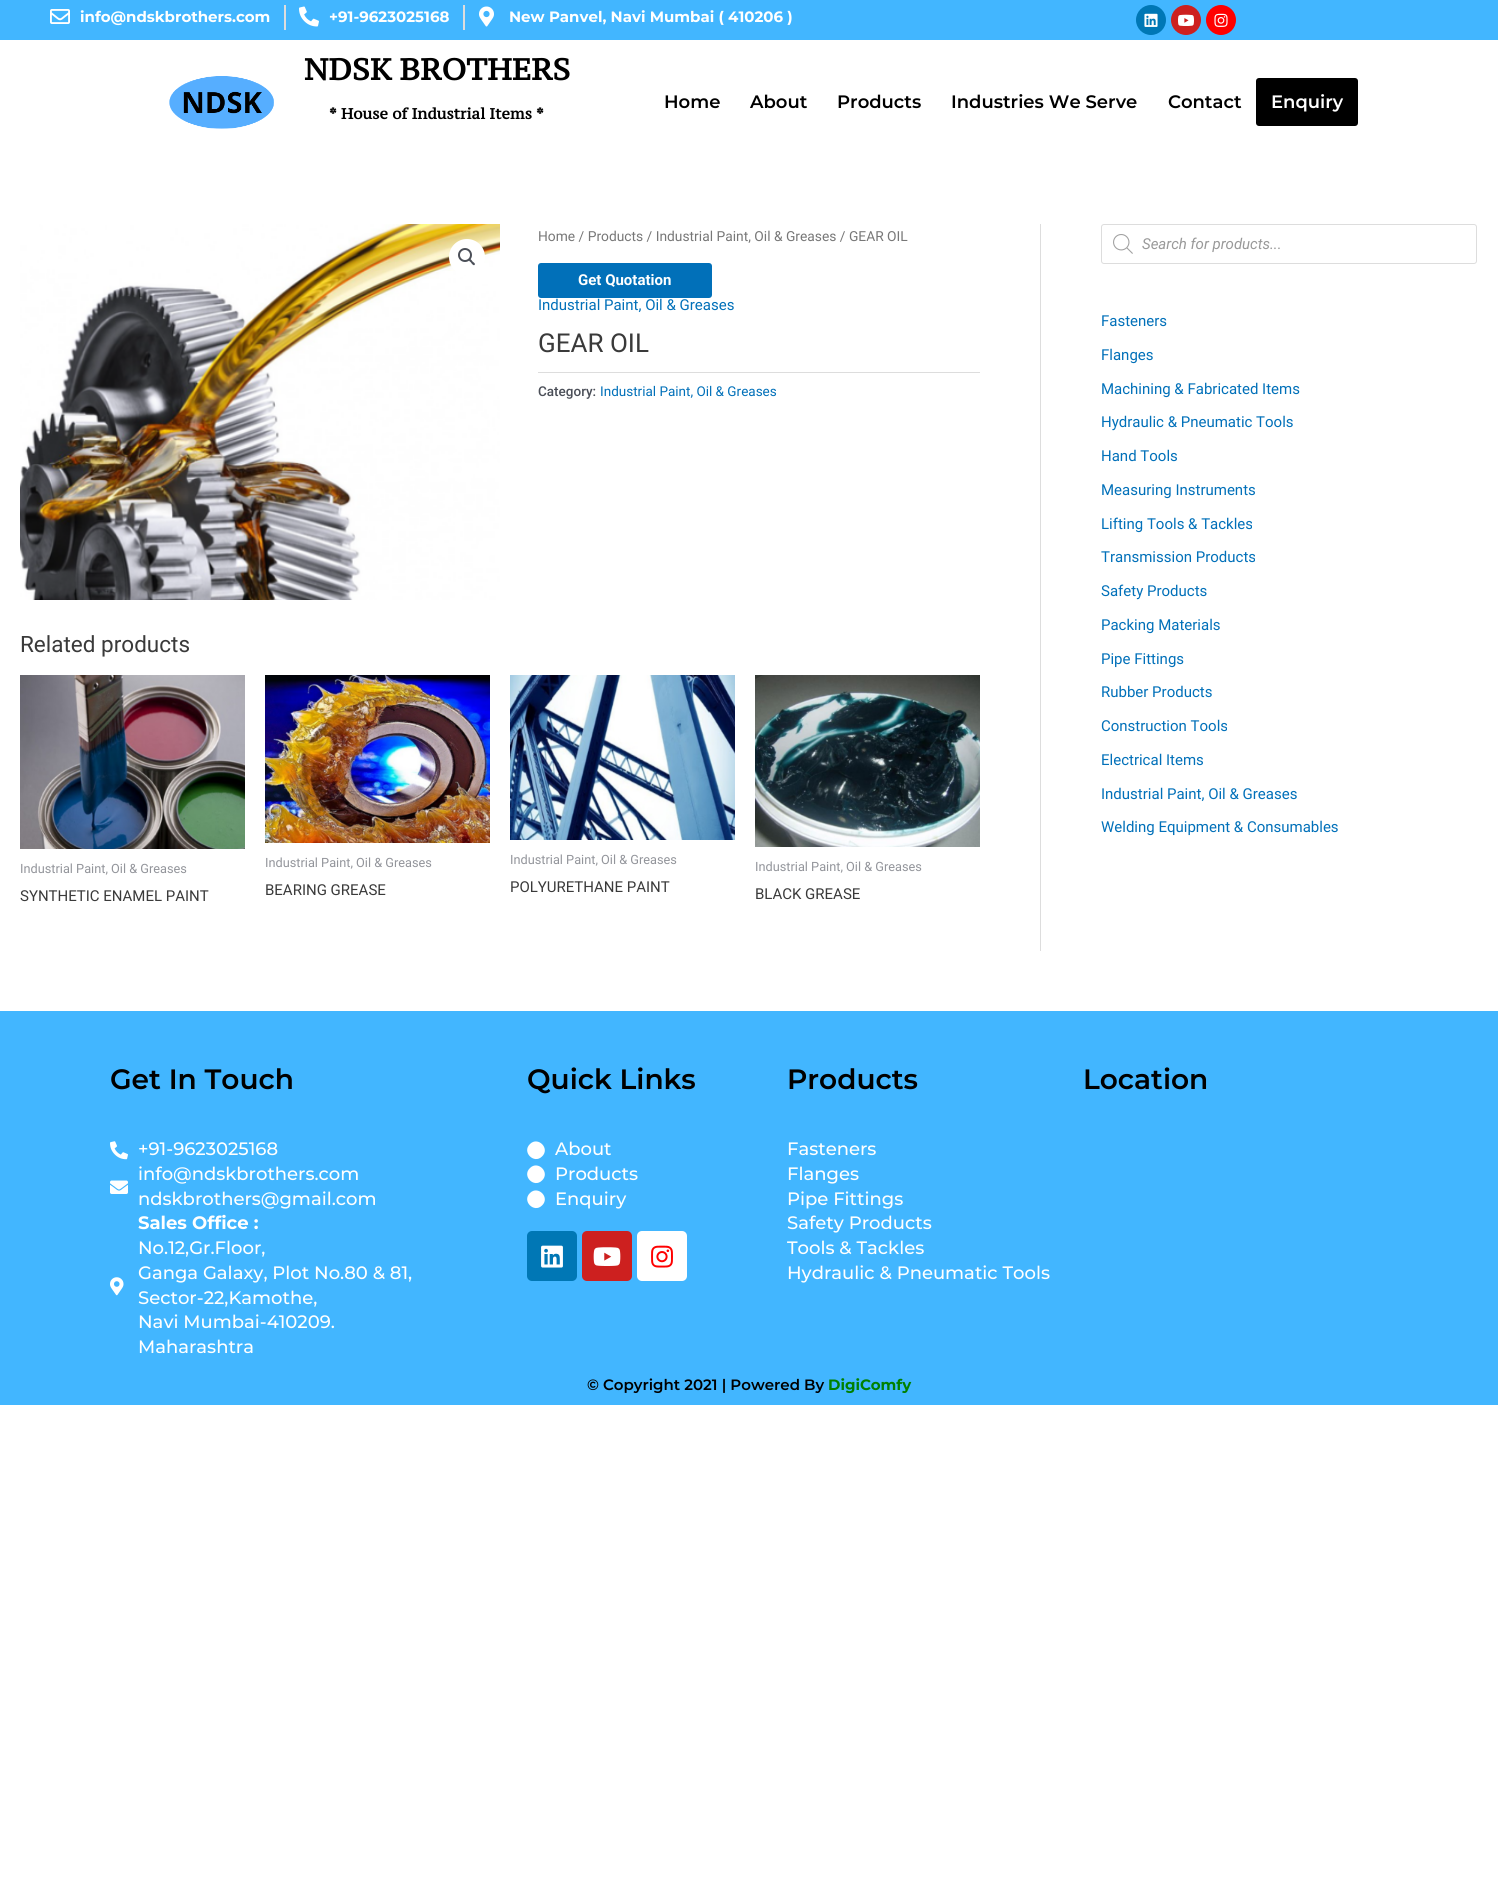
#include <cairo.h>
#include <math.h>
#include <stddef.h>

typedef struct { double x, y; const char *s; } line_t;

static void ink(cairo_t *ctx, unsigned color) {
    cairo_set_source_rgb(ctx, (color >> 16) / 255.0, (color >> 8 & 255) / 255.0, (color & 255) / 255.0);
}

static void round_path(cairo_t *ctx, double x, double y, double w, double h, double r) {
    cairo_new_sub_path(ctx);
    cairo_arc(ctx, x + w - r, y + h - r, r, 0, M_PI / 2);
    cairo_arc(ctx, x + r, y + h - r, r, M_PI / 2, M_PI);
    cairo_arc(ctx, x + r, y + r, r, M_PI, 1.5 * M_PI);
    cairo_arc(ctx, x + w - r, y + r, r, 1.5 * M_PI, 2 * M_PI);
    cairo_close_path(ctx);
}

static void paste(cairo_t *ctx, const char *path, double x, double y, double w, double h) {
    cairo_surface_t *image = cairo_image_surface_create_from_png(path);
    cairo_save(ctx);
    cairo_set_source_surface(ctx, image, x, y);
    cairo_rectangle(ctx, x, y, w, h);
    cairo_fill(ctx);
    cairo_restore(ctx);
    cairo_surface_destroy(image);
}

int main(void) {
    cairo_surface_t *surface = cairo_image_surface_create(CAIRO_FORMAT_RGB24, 1498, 1882);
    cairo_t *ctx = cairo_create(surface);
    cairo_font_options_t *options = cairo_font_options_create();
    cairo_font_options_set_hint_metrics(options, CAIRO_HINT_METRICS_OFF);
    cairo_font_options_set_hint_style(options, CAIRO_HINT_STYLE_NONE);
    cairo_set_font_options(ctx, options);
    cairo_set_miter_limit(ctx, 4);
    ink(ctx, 0xFFFFFF);
    cairo_paint(ctx);
    ink(ctx, 0x42B6FF);
    cairo_rectangle(ctx, 0, 0, 1498, 40);
    cairo_fill(ctx);
    paste(ctx, "media/1.png", 50, 9, 20, 15);
    cairo_select_font_face(ctx, "Montserrat", CAIRO_FONT_SLANT_NORMAL, CAIRO_FONT_WEIGHT_BOLD);
    cairo_set_font_size(ctx, 15);
    ink(ctx, 0xFFFFFF);
    cairo_move_to(ctx, 80, 22);
    cairo_show_text(ctx, "info@ndskbrothers.com");
    ink(ctx, 0xDDDDDD);
    cairo_rectangle(ctx, 284, 5, 2, 25);
    cairo_fill(ctx);
    paste(ctx, "media/2.png", 299, 6, 20, 21);
    ink(ctx, 0xFFFFFF);
    cairo_move_to(ctx, 329, 22);
    cairo_show_text(ctx, "+91-9623025168");
    ink(ctx, 0xDDDDDD);
    cairo_rectangle(ctx, 463, 5, 2, 25);
    cairo_fill(ctx);
    paste(ctx, "media/3.png", 479, 6, 15, 21);
    ink(ctx, 0xFFFFFF);
    cairo_move_to(ctx, 509, 22);
    cairo_show_text(ctx, "New Panvel, Navi Mumbai ( 410206 )");
    ink(ctx, 0x0077B5);
    cairo_new_path(ctx);
    cairo_arc(ctx, 1151, 20, 15, 0, 2 * M_PI);
    cairo_fill(ctx);
    paste(ctx, "media/4.png", 1144, 13, 14, 14);
    ink(ctx, 0xCD201F);
    cairo_arc(ctx, 1186, 20, 15, 0, 2 * M_PI);
    cairo_fill(ctx);
    paste(ctx, "media/5.png", 1178, 14, 16, 12);
    ink(ctx, 0xFF0000);
    cairo_arc(ctx, 1221, 20, 15, 0, 2 * M_PI);
    cairo_fill(ctx);
    paste(ctx, "media/6.png", 1214, 13, 14, 14);
    paste(ctx, "media/7.png", 169, 76, 105, 53);
    cairo_select_font_face(ctx, "PT Serif Caption", CAIRO_FONT_SLANT_NORMAL, CAIRO_FONT_WEIGHT_BOLD);
    cairo_set_font_size(ctx, 30);
    ink(ctx, 0x000000);
    cairo_move_to(ctx, 304, 80);
    cairo_show_text(ctx, "NDSK BROTHERS");
    cairo_set_font_size(ctx, 15);
    cairo_move_to(ctx, 329, 119);
    cairo_show_text(ctx, "* House of Industrial Items *");
    cairo_select_font_face(ctx, "Montserrat SemiBold", CAIRO_FONT_SLANT_NORMAL, CAIRO_FONT_WEIGHT_NORMAL);
    cairo_set_font_size(ctx, 18);
    {
        static const line_t items[] = {
            {664, 108, "Home"},
            {750, 108, "About"},
            {837, 108, "Products"},
            {951, 108, "Industries We Serve"},
            {1168, 108, "Contact"},
        };
        for (size_t i = 0; i < sizeof items / sizeof *items; i++) {
            cairo_move_to(ctx, items[i].x, items[i].y);
            cairo_show_text(ctx, items[i].s);
        }
    }
    round_path(ctx, 1256, 78, 102, 48, 3);
    cairo_fill(ctx);
    ink(ctx, 0xFFFFFF);
    cairo_move_to(ctx, 1271, 108);
    cairo_show_text(ctx, "Enquiry");
    ink(ctx, 0xDDDDDD);
    cairo_rectangle(ctx, 1040, 224, 1, 727);
    cairo_fill(ctx);
    paste(ctx, "media/8.png", 20, 224, 480, 376);
    ink(ctx, 0xFFFFFF);
    cairo_arc(ctx, 467, 257, 18, 0, 2 * M_PI);
    cairo_fill(ctx);
    cairo_arc(ctx, 465, 255, 6, 0, 2 * M_PI);
    ink(ctx, 0x4B4F58);
    cairo_stroke(ctx);
    cairo_new_path(ctx);
    cairo_move_to(ctx, 469, 259);
    cairo_curve_to(ctx, 470, 258, 472, 260.5, 472.5, 261.5);
    cairo_curve_to(ctx, 473, 262, 476, 263.5, 474.5, 265);
    cairo_curve_to(ctx, 473.5, 266, 471.5, 263.5, 471, 262.5);
    cairo_curve_to(ctx, 470.5, 262, 468, 260.5, 469, 259);
    cairo_close_path(ctx);
    cairo_fill(ctx);
    cairo_select_font_face(ctx, "Roboto", CAIRO_FONT_SLANT_NORMAL, CAIRO_FONT_WEIGHT_NORMAL);
    cairo_set_font_size(ctx, 13.8);
    ink(ctx, 0x777777);
    cairo_move_to(ctx, 538, 241);
    cairo_show_text(ctx, "Home / Products / Industrial Paint, Oil & Greases / GEAR OIL");
    ink(ctx, 0x0170B9);
    round_path(ctx, 538, 263, 174, 35, 3);
    cairo_fill(ctx);
    cairo_select_font_face(ctx, "Roboto", CAIRO_FONT_SLANT_NORMAL, CAIRO_FONT_WEIGHT_BOLD);
    cairo_set_font_size(ctx, 15);
    ink(ctx, 0xFFFFFF);
    cairo_move_to(ctx, 578, 285);
    cairo_show_text(ctx, "Get Quotation");
    cairo_select_font_face(ctx, "Roboto", CAIRO_FONT_SLANT_NORMAL, CAIRO_FONT_WEIGHT_NORMAL);
    ink(ctx, 0x0170B9);
    cairo_move_to(ctx, 538, 310);
    cairo_show_text(ctx, "Industrial Paint, Oil & Greases");
    cairo_set_font_size(ctx, 26);
    ink(ctx, 0x3A3A3A);
    cairo_move_to(ctx, 538, 352);
    cairo_show_text(ctx, "GEAR OIL");
    ink(ctx, 0xDDDDDD);
    cairo_rectangle(ctx, 538, 372, 442, 1);
    cairo_fill(ctx);
    cairo_select_font_face(ctx, "Roboto Medium", CAIRO_FONT_SLANT_NORMAL, CAIRO_FONT_WEIGHT_NORMAL);
    cairo_set_font_size(ctx, 13.5);
    ink(ctx, 0x4B4F58);
    cairo_move_to(ctx, 538, 396);
    cairo_show_text(ctx, "Category:");
    cairo_select_font_face(ctx, "Roboto", CAIRO_FONT_SLANT_NORMAL, CAIRO_FONT_WEIGHT_NORMAL);
    ink(ctx, 0x0170B9);
    cairo_move_to(ctx, 600, 396);
    cairo_show_text(ctx, "Industrial Paint, Oil & Greases");
    cairo_set_font_size(ctx, 22.5);
    ink(ctx, 0x3A3A3A);
    cairo_move_to(ctx, 20, 652);
    cairo_show_text(ctx, "Related products");
    paste(ctx, "media/9.png", 20, 675, 225, 174);
    cairo_set_font_size(ctx, 12.75);
    ink(ctx, 0x93959B);
    cairo_move_to(ctx, 20, 873);
    cairo_show_text(ctx, "Industrial Paint, Oil & Greases");
    cairo_set_font_size(ctx, 15);
    ink(ctx, 0x3A3A3A);
    cairo_move_to(ctx, 20, 901);
    cairo_show_text(ctx, "SYNTHETIC ENAMEL PAINT");
    paste(ctx, "media/10.png", 265, 675, 225, 168);
    cairo_set_font_size(ctx, 12.75);
    ink(ctx, 0x93959B);
    cairo_move_to(ctx, 265, 867);
    cairo_show_text(ctx, "Industrial Paint, Oil & Greases");
    cairo_set_font_size(ctx, 15);
    ink(ctx, 0x3A3A3A);
    cairo_move_to(ctx, 265, 895);
    cairo_show_text(ctx, "BEARING GREASE");
    paste(ctx, "media/11.png", 510, 675, 225, 165);
    cairo_set_font_size(ctx, 12.75);
    ink(ctx, 0x93959B);
    cairo_move_to(ctx, 510, 864);
    cairo_show_text(ctx, "Industrial Paint, Oil & Greases");
    cairo_set_font_size(ctx, 15);
    ink(ctx, 0x3A3A3A);
    cairo_move_to(ctx, 510, 892);
    cairo_show_text(ctx, "POLYURETHANE PAINT");
    paste(ctx, "media/12.png", 755, 675, 225, 172);
    cairo_set_font_size(ctx, 12.75);
    ink(ctx, 0x93959B);
    cairo_move_to(ctx, 755, 871);
    cairo_show_text(ctx, "Industrial Paint, Oil & Greases");
    cairo_set_font_size(ctx, 15);
    ink(ctx, 0x3A3A3A);
    cairo_move_to(ctx, 755, 899);
    cairo_show_text(ctx, "BLACK GREASE");
    round_path(ctx, 1101.5, 224.5, 375, 39, 2.5);
    ink(ctx, 0xDDDDDD);
    cairo_set_line_width(ctx, 1);
    cairo_stroke(ctx);
    paste(ctx, "media/13.png", 1113, 234, 20, 20);
    cairo_select_font_face(ctx, "Roboto", CAIRO_FONT_SLANT_ITALIC, CAIRO_FONT_WEIGHT_NORMAL);
    ink(ctx, 0x999999);
    cairo_move_to(ctx, 1142, 249);
    cairo_show_text(ctx, "Search for products...");
    cairo_select_font_face(ctx, "Roboto", CAIRO_FONT_SLANT_NORMAL, CAIRO_FONT_WEIGHT_NORMAL);
    ink(ctx, 0x0170B9);
    {
        static const line_t items[] = {
            {1101, 326, "Fasteners"},
            {1101, 360, "Flanges"},
            {1101, 394, "Machining & Fabricated Items"},
            {1101, 427, "Hydraulic & Pneumatic Tools"},
            {1101, 461, "Hand Tools"},
            {1101, 495, "Measuring Instruments"},
            {1101, 529, "Lifting Tools & Tackles"},
            {1101, 562, "Transmission Products"},
            {1101, 596, "Safety Products"},
            {1101, 630, "Packing Materials"},
            {1101, 664, "Pipe Fittings"},
            {1101, 697, "Rubber Products"},
            {1101, 731, "Construction Tools"},
            {1101, 765, "Electrical Items"},
            {1101, 799, "Industrial Paint, Oil & Greases"},
            {1101, 832, "Welding Equipment & Consumables"},
        };
        for (size_t i = 0; i < sizeof items / sizeof *items; i++) {
            cairo_move_to(ctx, items[i].x, items[i].y);
            cairo_show_text(ctx, items[i].s);
        }
    }
    ink(ctx, 0x42B6FF);
    cairo_rectangle(ctx, 0, 1011, 1498, 394);
    cairo_fill(ctx);
    cairo_select_font_face(ctx, "Montserrat SemiBold", CAIRO_FONT_SLANT_NORMAL, CAIRO_FONT_WEIGHT_NORMAL);
    cairo_set_font_size(ctx, 28);
    ink(ctx, 0x000000);
    cairo_move_to(ctx, 110, 1089);
    cairo_show_text(ctx, "Get In Touch");
    paste(ctx, "media/14.png", 110, 1141, 18, 19);
    cairo_select_font_face(ctx, "Montserrat Medium", CAIRO_FONT_SLANT_NORMAL, CAIRO_FONT_WEIGHT_NORMAL);
    cairo_set_font_size(ctx, 18);
    ink(ctx, 0xFFFFFF);
    cairo_move_to(ctx, 138, 1155);
    cairo_show_text(ctx, "+91-9623025168");
    paste(ctx, "media/15.png", 110, 1180, 18, 14);
    cairo_move_to(ctx, 138, 1180);
    cairo_show_text(ctx, "info@ndskbrothers.com");
    cairo_move_to(ctx, 138, 1205);
    cairo_show_text(ctx, "ndskbrothers@gmail.com");
    paste(ctx, "media/16.png", 110, 1277, 14, 19);
    cairo_select_font_face(ctx, "Montserrat", CAIRO_FONT_SLANT_NORMAL, CAIRO_FONT_WEIGHT_BOLD);
    cairo_move_to(ctx, 138, 1229);
    cairo_show_text(ctx, "Sales Office :");
    cairo_select_font_face(ctx, "Montserrat Medium", CAIRO_FONT_SLANT_NORMAL, CAIRO_FONT_WEIGHT_NORMAL);
    {
        static const line_t items[] = {
            {138, 1254, "No.12,Gr.Floor,"},
            {138, 1279, "Ganga Galaxy, Plot No.80 & 81,"},
            {138, 1304, "Sector-22,Kamothe,"},
            {138, 1328, "Navi Mumbai-410209."},
            {138, 1353, "Maharashtra"},
        };
        for (size_t i = 0; i < sizeof items / sizeof *items; i++) {
            cairo_move_to(ctx, items[i].x, items[i].y);
            cairo_show_text(ctx, items[i].s);
        }
    }
    cairo_select_font_face(ctx, "Montserrat SemiBold", CAIRO_FONT_SLANT_NORMAL, CAIRO_FONT_WEIGHT_NORMAL);
    cairo_set_font_size(ctx, 28);
    ink(ctx, 0x000000);
    cairo_move_to(ctx, 527, 1089);
    cairo_show_text(ctx, "Quick Links");
    ink(ctx, 0xFFFFFF);
    cairo_new_path(ctx);
    cairo_move_to(ctx, 530, 1144);
    cairo_curve_to(ctx, 538, 1136, 550.5, 1148.5, 542, 1156.5);
    cairo_curve_to(ctx, 534, 1164.5, 521.5, 1152, 530, 1144);
    cairo_close_path(ctx);
    cairo_fill(ctx);
    cairo_select_font_face(ctx, "Montserrat Medium", CAIRO_FONT_SLANT_NORMAL, CAIRO_FONT_WEIGHT_NORMAL);
    cairo_set_font_size(ctx, 18);
    cairo_move_to(ctx, 555, 1155);
    cairo_show_text(ctx, "About");
    cairo_new_path(ctx);
    cairo_move_to(ctx, 530, 1168);
    cairo_curve_to(ctx, 538, 1160, 550.5, 1172.5, 542, 1180.5);
    cairo_curve_to(ctx, 534, 1188.5, 521.5, 1176, 530, 1168);
    cairo_close_path(ctx);
    cairo_fill(ctx);
    cairo_move_to(ctx, 555, 1180);
    cairo_show_text(ctx, "Products");
    cairo_new_path(ctx);
    cairo_move_to(ctx, 530, 1193);
    cairo_curve_to(ctx, 538, 1185, 550.5, 1197.5, 542, 1205.5);
    cairo_curve_to(ctx, 534, 1213.5, 521.5, 1201, 530, 1193);
    cairo_close_path(ctx);
    cairo_fill(ctx);
    cairo_move_to(ctx, 555, 1205);
    cairo_show_text(ctx, "Enquiry");
    ink(ctx, 0x0077B5);
    round_path(ctx, 527, 1231, 50, 50, 5);
    cairo_fill(ctx);
    paste(ctx, "media/17.png", 541, 1245, 22, 23);
    ink(ctx, 0xCD201F);
    round_path(ctx, 582, 1231, 50, 50, 5);
    cairo_fill(ctx);
    paste(ctx, "media/18.png", 593, 1247, 28, 19);
    ink(ctx, 0xFFFFFF);
    round_path(ctx, 637, 1231, 50, 50, 5);
    cairo_fill(ctx);
    paste(ctx, "media/19.png", 651, 1245, 22, 23);
    cairo_select_font_face(ctx, "Montserrat SemiBold", CAIRO_FONT_SLANT_NORMAL, CAIRO_FONT_WEIGHT_NORMAL);
    cairo_set_font_size(ctx, 28);
    ink(ctx, 0x000000);
    cairo_move_to(ctx, 787, 1089);
    cairo_show_text(ctx, "Products");
    cairo_select_font_face(ctx, "Montserrat Medium", CAIRO_FONT_SLANT_NORMAL, CAIRO_FONT_WEIGHT_NORMAL);
    cairo_set_font_size(ctx, 18);
    ink(ctx, 0xFFFFFF);
    {
        static const line_t items[] = {
            {787, 1155, "Fasteners"},
            {787, 1180, "Flanges"},
            {787, 1205, "Pipe Fittings"},
            {787, 1229, "Safety Products"},
            {787, 1254, "Tools & Tackles"},
            {787, 1279, "Hydraulic & Pneumatic Tools"},
        };
        for (size_t i = 0; i < sizeof items / sizeof *items; i++) {
            cairo_move_to(ctx, items[i].x, items[i].y);
            cairo_show_text(ctx, items[i].s);
        }
    }
    cairo_select_font_face(ctx, "Montserrat SemiBold", CAIRO_FONT_SLANT_NORMAL, CAIRO_FONT_WEIGHT_NORMAL);
    cairo_set_font_size(ctx, 28);
    ink(ctx, 0x000000);
    cairo_move_to(ctx, 1083, 1089);
    cairo_show_text(ctx, "Location");
    cairo_set_font_size(ctx, 15);
    cairo_move_to(ctx, 587, 1390);
    cairo_show_text(ctx, "© Copyright 2021 | Powered By");
    cairo_select_font_face(ctx, "Montserrat", CAIRO_FONT_SLANT_NORMAL, CAIRO_FONT_WEIGHT_BOLD);
    ink(ctx, 0x008000);
    cairo_move_to(ctx, 828, 1390);
    cairo_show_text(ctx, "DigiComfy");
    cairo_surface_write_to_png(surface, "image.png");
    cairo_font_options_destroy(options);
    cairo_destroy(ctx);
    cairo_surface_destroy(surface);
    return 0;
}
